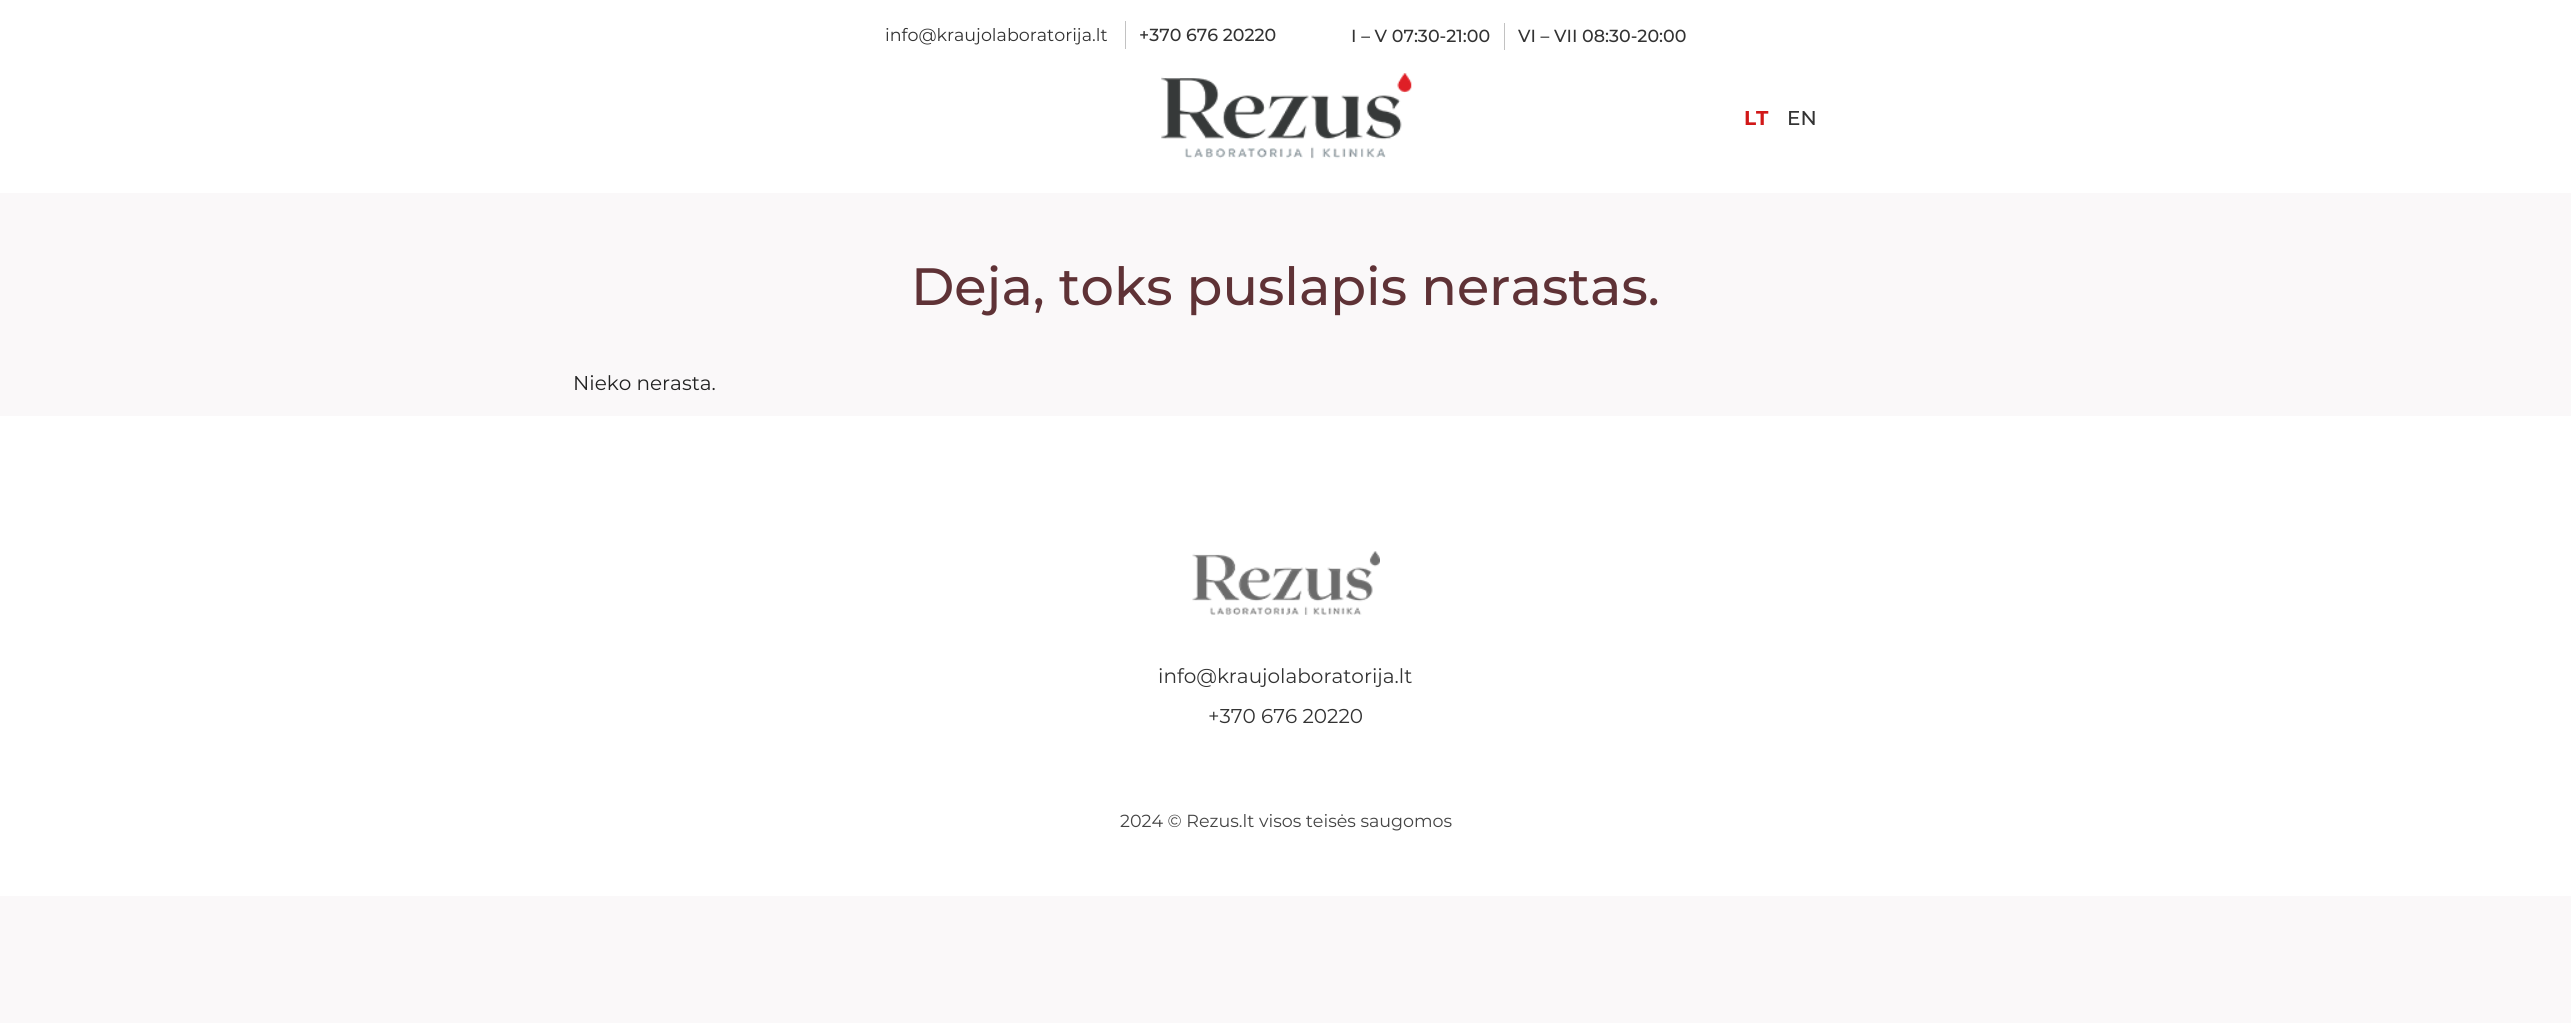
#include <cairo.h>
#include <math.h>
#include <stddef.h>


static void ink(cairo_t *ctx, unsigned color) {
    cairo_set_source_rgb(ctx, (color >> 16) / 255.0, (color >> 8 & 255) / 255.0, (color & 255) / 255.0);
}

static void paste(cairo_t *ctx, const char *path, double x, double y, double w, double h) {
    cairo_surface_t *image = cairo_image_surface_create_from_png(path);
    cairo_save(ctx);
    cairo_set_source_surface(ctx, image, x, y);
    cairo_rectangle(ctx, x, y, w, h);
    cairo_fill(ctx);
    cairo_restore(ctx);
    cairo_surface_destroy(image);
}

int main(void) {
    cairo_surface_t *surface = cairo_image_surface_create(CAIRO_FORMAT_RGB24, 2571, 1023);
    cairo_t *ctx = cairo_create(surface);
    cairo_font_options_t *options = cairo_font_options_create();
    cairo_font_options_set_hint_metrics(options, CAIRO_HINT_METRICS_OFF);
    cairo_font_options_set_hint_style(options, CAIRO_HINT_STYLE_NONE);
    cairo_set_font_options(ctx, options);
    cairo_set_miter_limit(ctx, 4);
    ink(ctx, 0xFAF8F9);
    cairo_paint(ctx);
    ink(ctx, 0xFFFFFF);
    cairo_rectangle(ctx, 0, 0, 2571, 193);
    cairo_fill(ctx);
    cairo_select_font_face(ctx, "Montserrat", CAIRO_FONT_SLANT_NORMAL, CAIRO_FONT_WEIGHT_NORMAL);
    cairo_set_font_size(ctx, 17.5);
    ink(ctx, 0x333333);
    cairo_move_to(ctx, 885, 41);
    cairo_show_text(ctx, "info@kraujolaboratorija.lt");
    ink(ctx, 0xC2C2C2);
    cairo_rectangle(ctx, 1125, 21, 1, 28);
    cairo_fill(ctx);
    cairo_select_font_face(ctx, "Montserrat Medium", CAIRO_FONT_SLANT_NORMAL, CAIRO_FONT_WEIGHT_NORMAL);
    ink(ctx, 0x333333);
    cairo_move_to(ctx, 1139, 41);
    cairo_show_text(ctx, "+370 676 20220");
    cairo_move_to(ctx, 1351, 42);
    cairo_show_text(ctx, "I – V 07:30-21:00");
    ink(ctx, 0xC2C2C2);
    cairo_rectangle(ctx, 1504, 23, 1, 27);
    cairo_fill(ctx);
    ink(ctx, 0x333333);
    cairo_move_to(ctx, 1518, 42);
    cairo_show_text(ctx, "VI – VII 08:30-20:00");
    paste(ctx, "media/1.png", 1161, 73, 251, 86);
    cairo_select_font_face(ctx, "Montserrat", CAIRO_FONT_SLANT_NORMAL, CAIRO_FONT_WEIGHT_BOLD);
    cairo_set_font_size(ctx, 20);
    ink(ctx, 0xD11818);
    cairo_move_to(ctx, 1744, 125);
    cairo_show_text(ctx, "LT");
    cairo_select_font_face(ctx, "Montserrat Medium", CAIRO_FONT_SLANT_NORMAL, CAIRO_FONT_WEIGHT_NORMAL);
    ink(ctx, 0x333333);
    cairo_move_to(ctx, 1787, 125);
    cairo_show_text(ctx, "EN");
    cairo_set_font_size(ctx, 52.5);
    ink(ctx, 0x5F3236);
    cairo_move_to(ctx, 911, 305);
    cairo_show_text(ctx, "Deja, toks puslapis nerastas.");
    cairo_select_font_face(ctx, "Montserrat", CAIRO_FONT_SLANT_NORMAL, CAIRO_FONT_WEIGHT_NORMAL);
    cairo_set_font_size(ctx, 20);
    ink(ctx, 0x222222);
    cairo_move_to(ctx, 573, 390);
    cairo_show_text(ctx, "Nieko nerasta.");
    ink(ctx, 0xFFFFFF);
    cairo_rectangle(ctx, 0, 416, 2571, 480);
    cairo_fill(ctx);
    paste(ctx, "media/2.png", 1192, 551, 188, 64);
    ink(ctx, 0x333333);
    cairo_move_to(ctx, 1158, 683);
    cairo_show_text(ctx, "info@kraujolaboratorija.lt");
    cairo_move_to(ctx, 1208, 723);
    cairo_show_text(ctx, "+370 676 20220");
    cairo_set_font_size(ctx, 17.5);
    ink(ctx, 0x444444);
    cairo_move_to(ctx, 1120, 827);
    cairo_show_text(ctx, "2024 © Rezus.lt visos teisės saugomos");
    cairo_surface_write_to_png(surface, "image.png");
    cairo_font_options_destroy(options);
    cairo_destroy(ctx);
    cairo_surface_destroy(surface);
    return 0;
}
